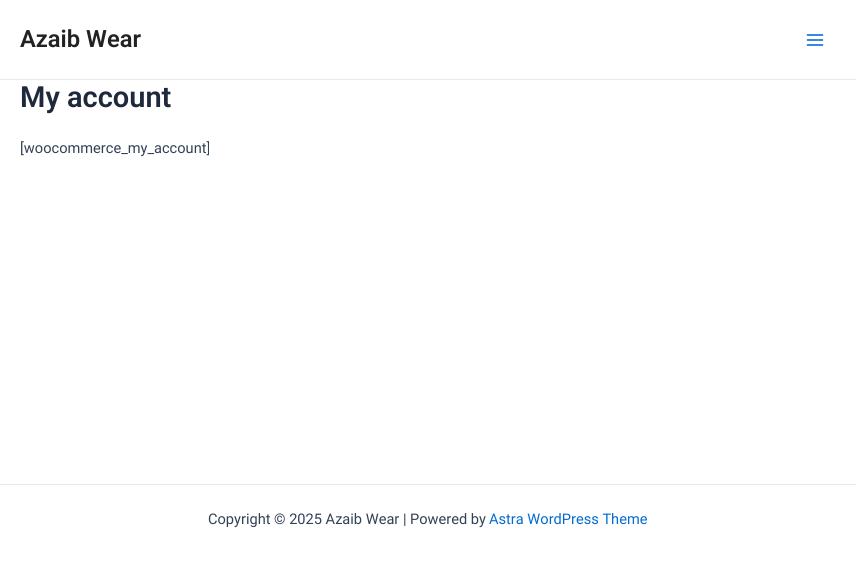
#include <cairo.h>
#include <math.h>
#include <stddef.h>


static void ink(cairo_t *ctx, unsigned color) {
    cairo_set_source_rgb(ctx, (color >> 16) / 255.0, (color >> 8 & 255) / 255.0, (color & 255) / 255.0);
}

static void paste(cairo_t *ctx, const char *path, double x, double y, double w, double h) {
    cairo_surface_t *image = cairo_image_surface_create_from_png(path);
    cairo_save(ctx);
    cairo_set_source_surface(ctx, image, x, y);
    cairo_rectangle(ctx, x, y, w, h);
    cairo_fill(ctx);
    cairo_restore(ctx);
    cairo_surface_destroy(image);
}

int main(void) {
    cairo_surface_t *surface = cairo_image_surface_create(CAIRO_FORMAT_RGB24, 856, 564);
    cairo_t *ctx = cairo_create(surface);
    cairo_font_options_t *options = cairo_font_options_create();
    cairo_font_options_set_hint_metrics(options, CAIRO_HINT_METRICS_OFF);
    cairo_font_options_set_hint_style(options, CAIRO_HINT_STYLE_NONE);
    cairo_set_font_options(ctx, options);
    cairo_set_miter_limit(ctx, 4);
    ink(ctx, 0xFFFFFF);
    cairo_paint(ctx);
    ink(ctx, 0xEAEAEA);
    cairo_rectangle(ctx, 0, 79, 856, 1);
    cairo_fill(ctx);
    cairo_select_font_face(ctx, "Roboto SemiBold", CAIRO_FONT_SLANT_NORMAL, CAIRO_FONT_WEIGHT_NORMAL);
    cairo_set_font_size(ctx, 23.75);
    ink(ctx, 0x222222);
    cairo_move_to(ctx, 20, 47);
    cairo_show_text(ctx, "Azaib Wear");
    paste(ctx, "media/1.png", 806, 34, 18, 12);
    cairo_set_font_size(ctx, 29);
    ink(ctx, 0x1E293B);
    cairo_move_to(ctx, 20, 107);
    cairo_show_text(ctx, "My account");
    cairo_select_font_face(ctx, "Roboto", CAIRO_FONT_SLANT_NORMAL, CAIRO_FONT_WEIGHT_NORMAL);
    cairo_set_font_size(ctx, 14.6);
    ink(ctx, 0x334155);
    cairo_move_to(ctx, 20, 153);
    cairo_show_text(ctx, "[woocommerce_my_account]");
    ink(ctx, 0xE2E8F0);
    cairo_rectangle(ctx, 0, 484, 856, 1);
    cairo_fill(ctx);
    ink(ctx, 0x334155);
    cairo_move_to(ctx, 208, 524);
    cairo_show_text(ctx, "Copyright © 2025 Azaib Wear | Powered by");
    ink(ctx, 0x046BD2);
    cairo_move_to(ctx, 489, 524);
    cairo_show_text(ctx, "Astra WordPress Theme");
    cairo_surface_write_to_png(surface, "image.png");
    cairo_font_options_destroy(options);
    cairo_destroy(ctx);
    cairo_surface_destroy(surface);
    return 0;
}
